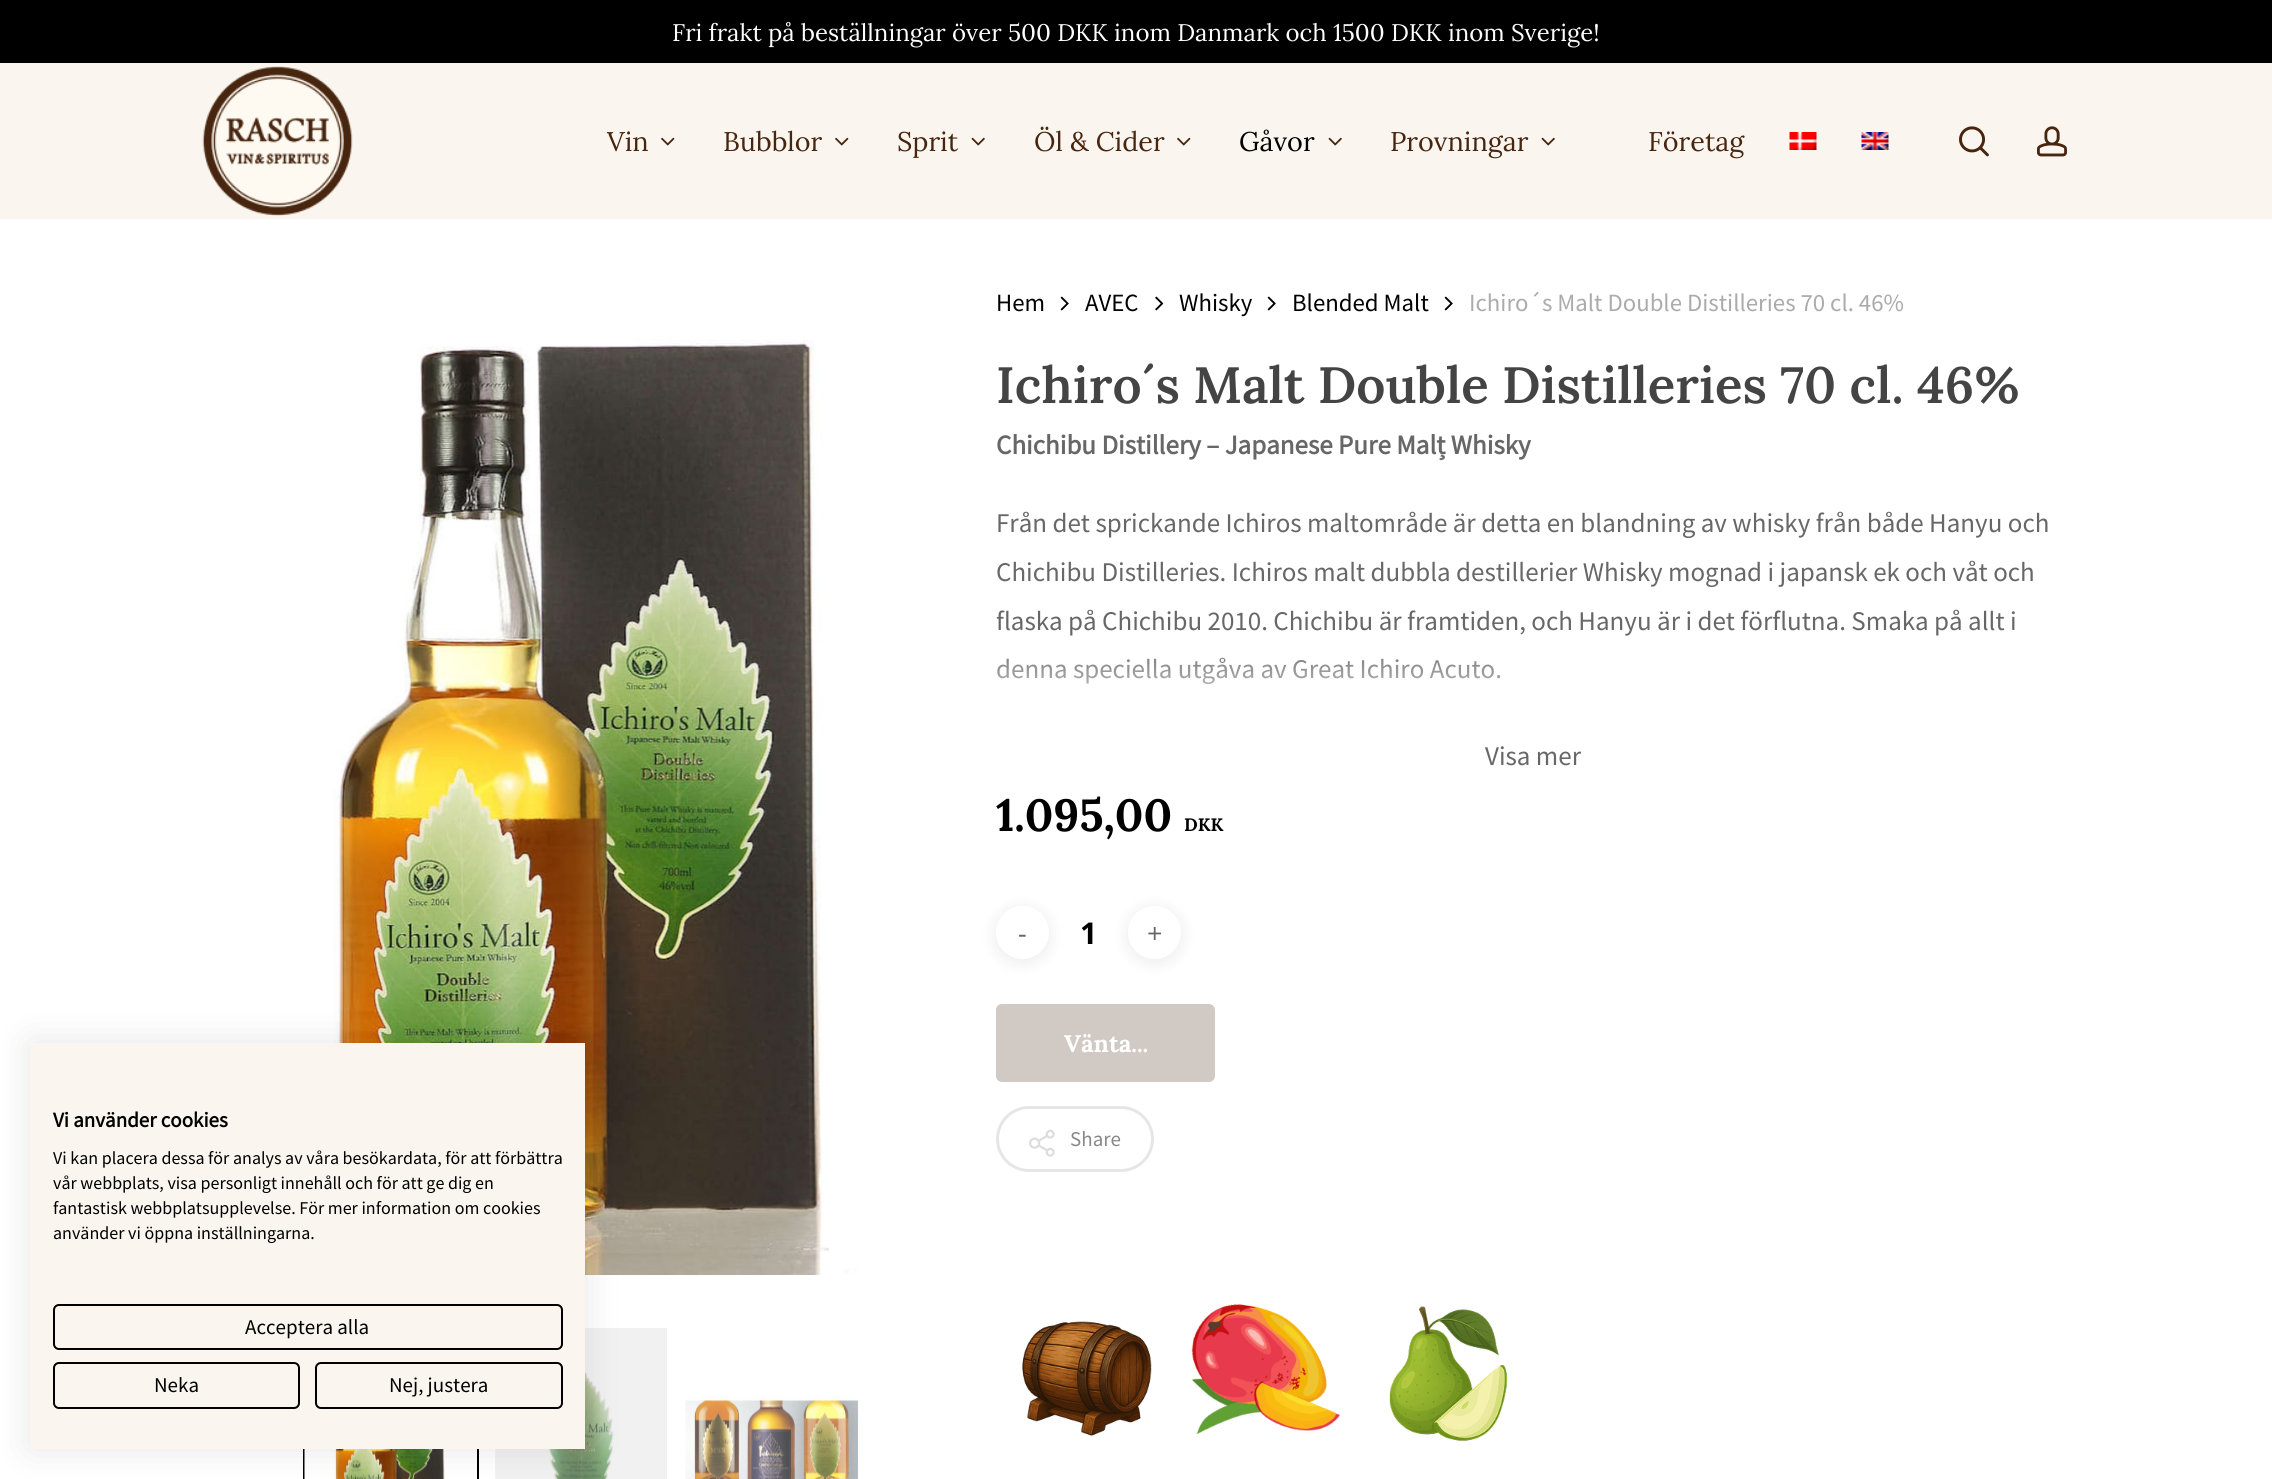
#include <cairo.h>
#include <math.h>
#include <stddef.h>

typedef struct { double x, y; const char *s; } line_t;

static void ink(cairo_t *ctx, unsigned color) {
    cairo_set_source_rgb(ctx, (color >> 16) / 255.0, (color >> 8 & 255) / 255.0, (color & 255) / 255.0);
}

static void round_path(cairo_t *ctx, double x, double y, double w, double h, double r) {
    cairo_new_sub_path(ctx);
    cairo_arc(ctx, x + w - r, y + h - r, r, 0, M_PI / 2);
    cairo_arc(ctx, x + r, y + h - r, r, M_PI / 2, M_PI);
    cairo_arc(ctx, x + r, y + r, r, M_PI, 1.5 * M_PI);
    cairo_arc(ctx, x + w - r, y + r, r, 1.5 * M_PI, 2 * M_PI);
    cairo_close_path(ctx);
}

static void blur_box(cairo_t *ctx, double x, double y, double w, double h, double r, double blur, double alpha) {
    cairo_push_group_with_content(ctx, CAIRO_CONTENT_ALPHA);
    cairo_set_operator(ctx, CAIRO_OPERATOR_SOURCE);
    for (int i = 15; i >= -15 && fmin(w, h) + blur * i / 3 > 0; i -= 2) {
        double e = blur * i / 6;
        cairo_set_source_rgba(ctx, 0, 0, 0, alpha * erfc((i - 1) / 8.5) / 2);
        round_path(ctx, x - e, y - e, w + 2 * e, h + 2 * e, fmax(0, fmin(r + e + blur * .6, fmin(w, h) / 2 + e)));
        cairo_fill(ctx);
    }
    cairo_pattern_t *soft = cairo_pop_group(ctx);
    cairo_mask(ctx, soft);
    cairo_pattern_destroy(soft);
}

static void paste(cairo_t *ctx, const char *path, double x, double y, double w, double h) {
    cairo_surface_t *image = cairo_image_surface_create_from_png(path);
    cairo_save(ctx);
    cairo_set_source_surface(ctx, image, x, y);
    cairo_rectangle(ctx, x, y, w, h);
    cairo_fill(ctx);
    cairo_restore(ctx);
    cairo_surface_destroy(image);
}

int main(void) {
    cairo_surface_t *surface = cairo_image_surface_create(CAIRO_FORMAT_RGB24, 2272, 1479);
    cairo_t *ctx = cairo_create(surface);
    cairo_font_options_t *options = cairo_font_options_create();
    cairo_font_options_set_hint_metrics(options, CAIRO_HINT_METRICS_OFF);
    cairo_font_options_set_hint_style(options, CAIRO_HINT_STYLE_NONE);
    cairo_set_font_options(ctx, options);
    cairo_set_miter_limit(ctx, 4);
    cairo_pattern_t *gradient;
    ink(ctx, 0xFFFFFF);
    cairo_paint(ctx);
    ink(ctx, 0x000000);
    cairo_rectangle(ctx, 0, 0, 2272, 63);
    cairo_fill(ctx);
    cairo_select_font_face(ctx, "Lora", CAIRO_FONT_SLANT_NORMAL, CAIRO_FONT_WEIGHT_NORMAL);
    cairo_set_font_size(ctx, 24);
    ink(ctx, 0xFFFFFF);
    cairo_move_to(ctx, 672, 41);
    cairo_show_text(ctx, "Fri frakt på beställningar över 500 DKK inom Danmark och 1500 DKK inom Sverige!");
    ink(ctx, 0xFAF6EF);
    cairo_rectangle(ctx, 0, 63, 2272, 156);
    cairo_fill(ctx);
    paste(ctx, "media/1.png", 202, 66, 151, 150);
    cairo_set_font_size(ctx, 27);
    ink(ctx, 0x47250F);
    cairo_move_to(ctx, 607, 151);
    cairo_show_text(ctx, "Vin");
    paste(ctx, "media/2.png", 661, 137, 14, 9);
    cairo_move_to(ctx, 723, 151);
    cairo_show_text(ctx, "Bubblor");
    paste(ctx, "media/2.png", 835, 137, 14, 9);
    cairo_move_to(ctx, 897, 151);
    cairo_show_text(ctx, "Sprit");
    paste(ctx, "media/3.png", 971, 137, 14, 9);
    cairo_move_to(ctx, 1034, 151);
    cairo_show_text(ctx, "Öl & Cider");
    paste(ctx, "media/2.png", 1177, 137, 14, 9);
    ink(ctx, 0x000000);
    cairo_move_to(ctx, 1239, 151);
    cairo_show_text(ctx, "Gåvor");
    paste(ctx, "media/3.png", 1328, 137, 14, 9);
    ink(ctx, 0x47250F);
    cairo_move_to(ctx, 1390, 151);
    cairo_show_text(ctx, "Provningar");
    paste(ctx, "media/3.png", 1541, 137, 14, 9);
    cairo_move_to(ctx, 1648, 151);
    cairo_show_text(ctx, "Företag");
    paste(ctx, "media/4.png", 1789, 132, 28, 18);
    paste(ctx, "media/5.png", 1861, 132, 28, 18);
    paste(ctx, "media/6.png", 1959, 126, 30, 31);
    paste(ctx, "media/7.png", 2037, 126, 30, 31);
    paste(ctx, "media/8.png", 333, 339, 524, 937);
    cairo_rectangle(ctx, 304, 1327, 174, 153);
    ink(ctx, 0x000000);
    cairo_stroke(ctx);
    paste(ctx, "media/9.png", 304, 1449, 141, 30);
    paste(ctx, "media/10.png", 495, 1328, 172, 151);
    paste(ctx, "media/11.png", 685, 1396, 173, 83);
    cairo_select_font_face(ctx, "Source Sans Pro", CAIRO_FONT_SLANT_NORMAL, CAIRO_FONT_WEIGHT_NORMAL);
    cairo_set_font_size(ctx, 24.8);
    cairo_move_to(ctx, 996, 311);
    cairo_show_text(ctx, "Hem");
    paste(ctx, "media/12.png", 1060, 296, 9, 15);
    cairo_move_to(ctx, 1085, 311);
    cairo_show_text(ctx, "AVEC");
    paste(ctx, "media/13.png", 1155, 296, 9, 15);
    cairo_move_to(ctx, 1179, 311);
    cairo_show_text(ctx, "Whisky");
    paste(ctx, "media/12.png", 1267, 296, 9, 15);
    cairo_move_to(ctx, 1292, 311);
    cairo_show_text(ctx, "Blended Malt");
    paste(ctx, "media/12.png", 1444, 296, 9, 15);
    ink(ctx, 0xABABAB);
    cairo_move_to(ctx, 1469, 311);
    cairo_show_text(ctx, "Ichiro´s Malt Double Distilleries 70 cl. 46%");
    cairo_select_font_face(ctx, "Lora SemiBold", CAIRO_FONT_SLANT_NORMAL, CAIRO_FONT_WEIGHT_NORMAL);
    cairo_set_font_size(ctx, 51);
    ink(ctx, 0x444444);
    cairo_move_to(ctx, 996, 403);
    cairo_show_text(ctx, "Ichiro´s Malt Double Distilleries 70 cl. 46%");
    cairo_select_font_face(ctx, "Source Sans Pro", CAIRO_FONT_SLANT_NORMAL, CAIRO_FONT_WEIGHT_BOLD);
    cairo_set_font_size(ctx, 27);
    ink(ctx, 0x676767);
    cairo_move_to(ctx, 996, 454);
    cairo_show_text(ctx, "Chichibu Distillery – Japanese Pure Malț Whisky");
    cairo_select_font_face(ctx, "Source Sans Pro", CAIRO_FONT_SLANT_NORMAL, CAIRO_FONT_WEIGHT_NORMAL);
    {
        static const line_t items[] = {
            {996, 532, "Från det sprickande Ichiros maltområde är detta en blandning av whisky från både Hanyu och"},
            {996, 581, "Chichibu Distilleries. Ichiros malt dubbla destillerier Whisky mognad i japansk ek och våt och"},
            {996, 630, "flaska på Chichibu 2010. Chichibu är framtiden, och Hanyu är i det förflutna. Smaka på allt i"},
            {996, 678, "denna speciella utgåva av Great Ichiro Acuto."},
        };
        for (size_t i = 0; i < sizeof items / sizeof *items; i++) {
            cairo_move_to(ctx, items[i].x, items[i].y);
            cairo_show_text(ctx, items[i].s);
        }
    }
    gradient = cairo_pattern_create_linear(1533, 770, 1533, 642);
    cairo_pattern_add_color_stop_rgba(gradient, 0.3, 1, 1, 1, 1);
    cairo_pattern_add_color_stop_rgba(gradient, 1, 1, 1, 1, 0);
    cairo_set_source(ctx, gradient);
    cairo_pattern_destroy(gradient);
    cairo_rectangle(ctx, 997, 657, 504, 27);
    cairo_fill(ctx);
    ink(ctx, 0x676767);
    cairo_move_to(ctx, 1485, 765);
    cairo_show_text(ctx, "Visa mer");
    cairo_select_font_face(ctx, "Lora", CAIRO_FONT_SLANT_NORMAL, CAIRO_FONT_WEIGHT_BOLD);
    cairo_set_font_size(ctx, 45);
    ink(ctx, 0x000000);
    cairo_move_to(ctx, 996, 831);
    cairo_show_text(ctx, "1.095,00");
    cairo_set_font_size(ctx, 18);
    cairo_move_to(ctx, 1184, 831);
    cairo_show_text(ctx, "DKK");
    ink(ctx, 0x000000);
    blur_box(ctx, 996, 909, 53, 53, 26.5, 9, 0.08);
    ink(ctx, 0xFFFFFF);
    cairo_arc(ctx, 1022.5, 932.5, 26.5, 0, 2 * M_PI);
    cairo_fill(ctx);
    cairo_select_font_face(ctx, "Open Sans", CAIRO_FONT_SLANT_NORMAL, CAIRO_FONT_WEIGHT_NORMAL);
    cairo_set_font_size(ctx, 27);
    ink(ctx, 0x676767);
    cairo_move_to(ctx, 1018, 943);
    cairo_show_text(ctx, "-");
    cairo_select_font_face(ctx, "Open Sans", CAIRO_FONT_SLANT_NORMAL, CAIRO_FONT_WEIGHT_BOLD);
    cairo_set_font_size(ctx, 30);
    ink(ctx, 0x000000);
    cairo_move_to(ctx, 1080, 944);
    cairo_show_text(ctx, "1");
    ink(ctx, 0x000000);
    blur_box(ctx, 1128, 909, 53, 53, 26.5, 9, 0.08);
    ink(ctx, 0xFFFFFF);
    cairo_arc(ctx, 1154.5, 932.5, 26.5, 0, 2 * M_PI);
    cairo_fill(ctx);
    cairo_select_font_face(ctx, "Open Sans", CAIRO_FONT_SLANT_NORMAL, CAIRO_FONT_WEIGHT_NORMAL);
    cairo_set_font_size(ctx, 27);
    ink(ctx, 0x676767);
    cairo_move_to(ctx, 1147, 943);
    cairo_show_text(ctx, "+");
    ink(ctx, 0xD1C9C3);
    round_path(ctx, 996, 1004, 219, 78, 6);
    cairo_fill(ctx);
    cairo_select_font_face(ctx, "Lora", CAIRO_FONT_SLANT_NORMAL, CAIRO_FONT_WEIGHT_BOLD);
    cairo_set_font_size(ctx, 24);
    ink(ctx, 0xFFFFFF);
    cairo_move_to(ctx, 1064, 1052);
    cairo_show_text(ctx, "Vänta...");
    round_path(ctx, 997.5, 1107.5, 155, 63, 31.5);
    ink(ctx, 0xE6E6E6);
    cairo_set_line_width(ctx, 3);
    cairo_stroke(ctx);
    paste(ctx, "media/14.png", 1029, 1129, 26, 28);
    cairo_select_font_face(ctx, "Source Sans Pro", CAIRO_FONT_SLANT_NORMAL, CAIRO_FONT_WEIGHT_NORMAL);
    cairo_set_font_size(ctx, 21);
    ink(ctx, 0x888888);
    cairo_move_to(ctx, 1070, 1146);
    cairo_show_text(ctx, "Share");
    paste(ctx, "media/15.png", 1022, 1321, 130, 115);
    paste(ctx, "media/16.png", 1191, 1304, 149, 130);
    paste(ctx, "media/17.png", 1389, 1306, 119, 135);
    ink(ctx, 0x000000);
    blur_box(ctx, 30, 1043, 555, 406, 0, 18, 0.1);
    ink(ctx, 0xFAF6EF);
    cairo_rectangle(ctx, 30, 1043, 555, 406);
    cairo_fill(ctx);
    cairo_select_font_face(ctx, "Source Sans Pro", CAIRO_FONT_SLANT_NORMAL, CAIRO_FONT_WEIGHT_BOLD);
    ink(ctx, 0x000000);
    cairo_move_to(ctx, 53, 1127);
    cairo_show_text(ctx, "Vi använder cookies");
    cairo_select_font_face(ctx, "Source Sans Pro", CAIRO_FONT_SLANT_NORMAL, CAIRO_FONT_WEIGHT_NORMAL);
    cairo_set_font_size(ctx, 18);
    {
        static const line_t items[] = {
            {53, 1164, "Vi kan placera dessa för analys av våra besökardata, för att förbättra"},
            {53, 1189, "vår webbplats, visa personligt innehåll och för att ge dig en"},
            {53, 1214, "fantastisk webbplatsupplevelse. För mer information om cookies"},
            {53, 1239, "använder vi öppna inställningarna."},
        };
        for (size_t i = 0; i < sizeof items / sizeof *items; i++) {
            cairo_move_to(ctx, items[i].x, items[i].y);
            cairo_show_text(ctx, items[i].s);
        }
    }
    round_path(ctx, 54, 1305, 508, 44, 5);
    cairo_set_line_width(ctx, 2);
    cairo_stroke(ctx);
    cairo_set_font_size(ctx, 21);
    cairo_move_to(ctx, 245, 1334);
    cairo_show_text(ctx, "Acceptera alla");
    round_path(ctx, 54, 1363, 245, 45, 5);
    cairo_stroke(ctx);
    cairo_move_to(ctx, 154, 1392);
    cairo_show_text(ctx, "Neka");
    round_path(ctx, 316, 1363, 246, 45, 5);
    cairo_stroke(ctx);
    cairo_move_to(ctx, 389, 1392);
    cairo_show_text(ctx, "Nej, justera");
    cairo_surface_write_to_png(surface, "image.png");
    cairo_font_options_destroy(options);
    cairo_destroy(ctx);
    cairo_surface_destroy(surface);
    return 0;
}
